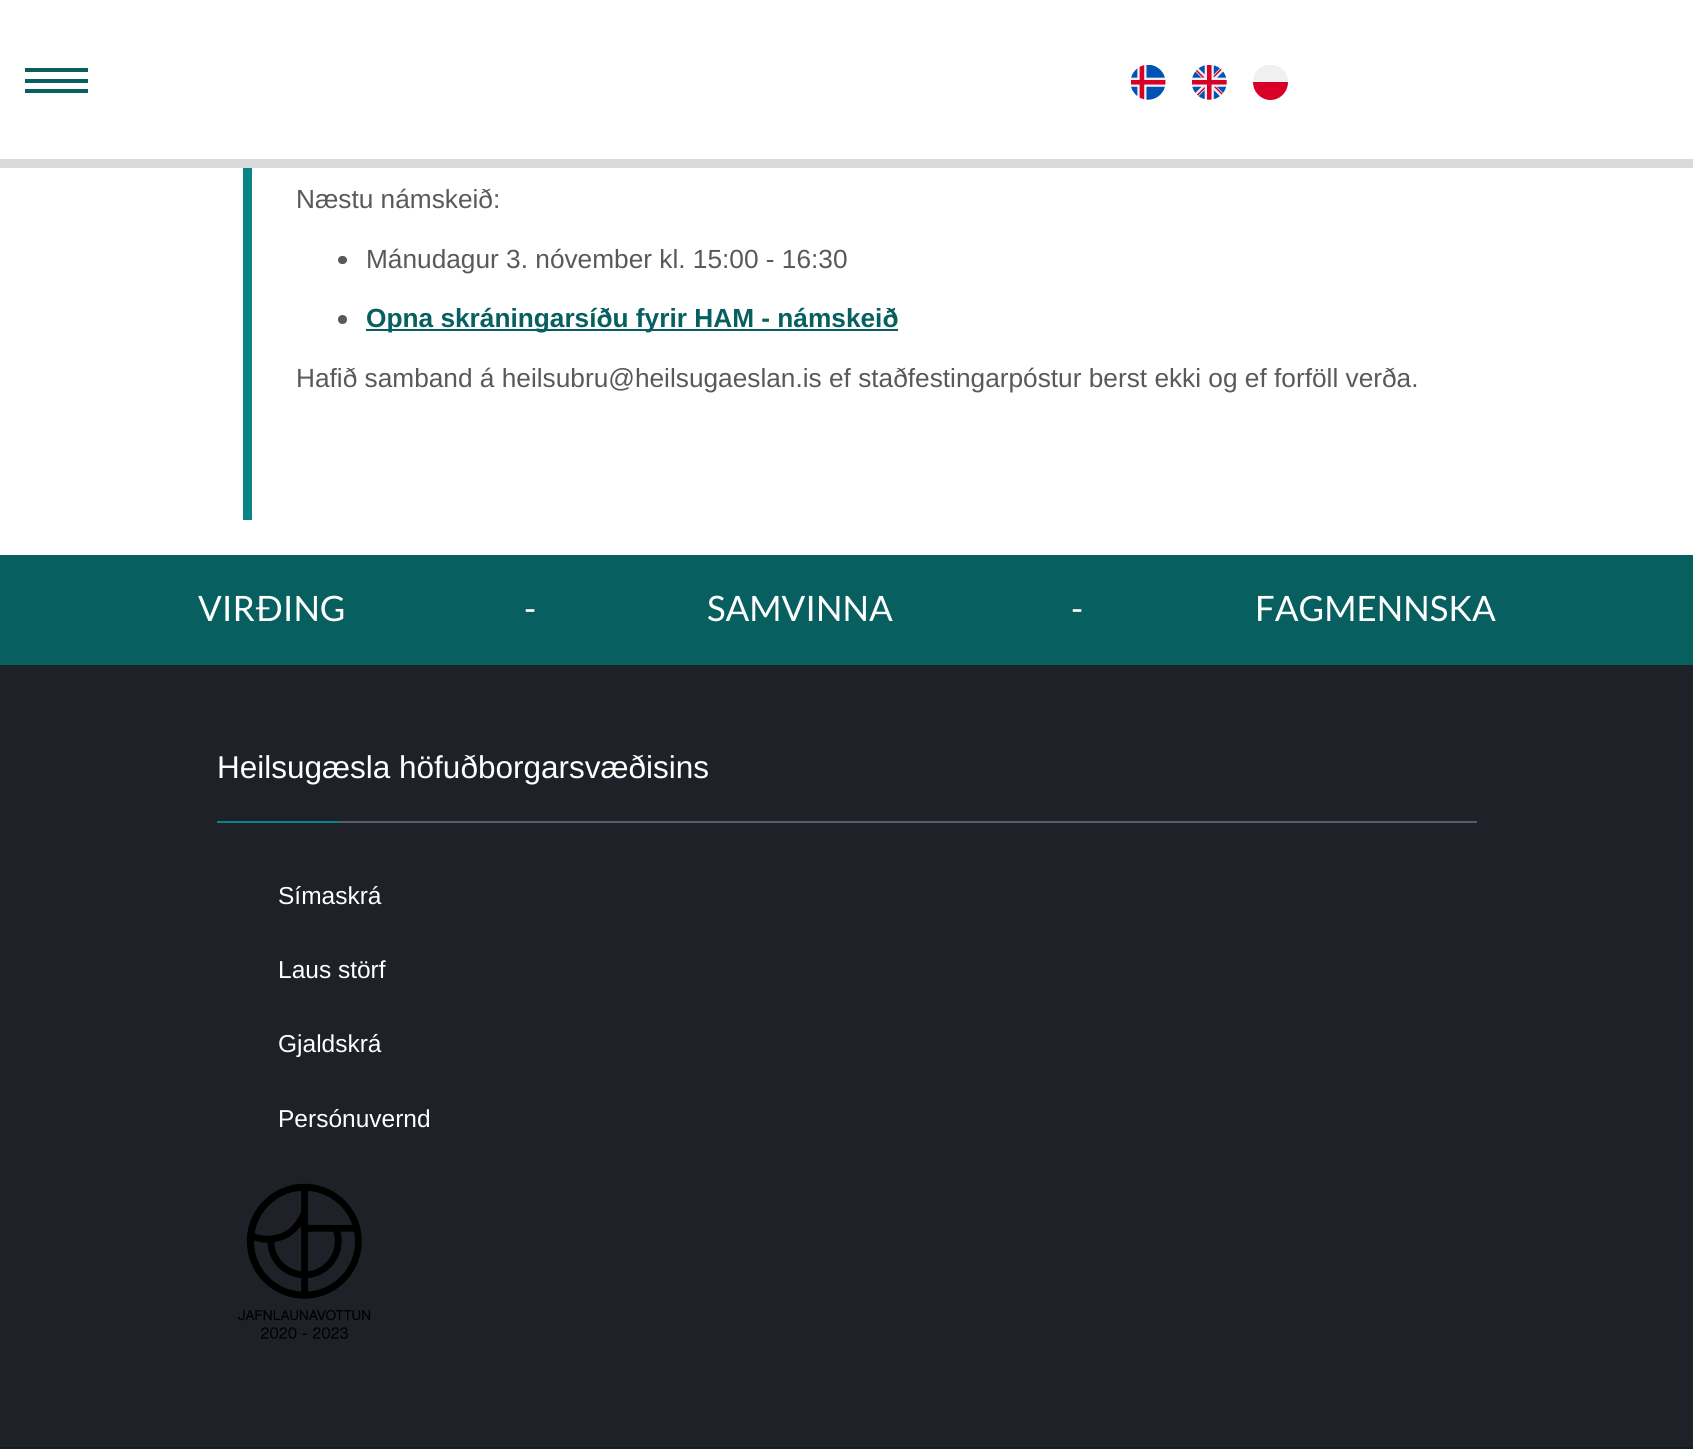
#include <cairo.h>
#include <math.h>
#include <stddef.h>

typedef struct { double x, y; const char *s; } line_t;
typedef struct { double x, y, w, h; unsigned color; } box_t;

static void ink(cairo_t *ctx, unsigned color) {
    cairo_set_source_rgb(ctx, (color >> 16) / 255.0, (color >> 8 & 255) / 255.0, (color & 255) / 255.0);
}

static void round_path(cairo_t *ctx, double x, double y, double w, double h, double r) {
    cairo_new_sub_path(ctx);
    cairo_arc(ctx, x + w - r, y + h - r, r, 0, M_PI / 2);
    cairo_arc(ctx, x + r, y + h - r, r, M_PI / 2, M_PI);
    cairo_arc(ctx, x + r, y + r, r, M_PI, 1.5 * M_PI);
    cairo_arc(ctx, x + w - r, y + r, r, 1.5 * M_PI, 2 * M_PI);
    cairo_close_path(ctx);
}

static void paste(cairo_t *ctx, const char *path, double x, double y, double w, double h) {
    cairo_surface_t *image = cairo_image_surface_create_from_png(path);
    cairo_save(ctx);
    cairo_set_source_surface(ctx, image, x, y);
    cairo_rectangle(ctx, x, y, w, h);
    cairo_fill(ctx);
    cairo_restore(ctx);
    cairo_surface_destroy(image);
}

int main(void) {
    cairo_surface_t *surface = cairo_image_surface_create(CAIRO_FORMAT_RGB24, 1693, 1449);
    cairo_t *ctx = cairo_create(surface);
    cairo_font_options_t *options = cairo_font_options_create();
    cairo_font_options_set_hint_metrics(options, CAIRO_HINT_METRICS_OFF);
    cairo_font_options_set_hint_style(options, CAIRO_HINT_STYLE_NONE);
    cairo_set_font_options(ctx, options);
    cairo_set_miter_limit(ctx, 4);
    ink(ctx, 0xFFFFFF);
    cairo_paint(ctx);
    paste(ctx, "media/1.png", 1131, 65, 35, 35);
    paste(ctx, "media/2.png", 1192, 65, 35, 35);
    cairo_save(ctx);
    cairo_rectangle(ctx, 1253, 65, 35, 35);
    cairo_clip(ctx);
    ink(ctx, 0xF0F0F0);
    cairo_arc(ctx, 1270.5, 82, 17.5, 0, 2 * M_PI);
    cairo_fill(ctx);
    cairo_restore(ctx);
    ink(ctx, 0xD80027);
    cairo_new_path(ctx);
    cairo_move_to(ctx, 1288, 82);
    cairo_curve_to(ctx, 1288, 92, 1280, 100, 1270.5, 100);
    cairo_curve_to(ctx, 1261, 100, 1253, 92, 1253, 82);
    cairo_fill(ctx);
    {
        static const box_t items[] = {
            {0, 159, 1693, 9, 0xDADADA},
            {25, 89, 63, 4, 0x075F5F},
            {25, 79, 63, 4, 0x075F5F},
            {25, 68, 63, 4, 0x075F5F},
            {243, 168, 9, 352, 0x0A8484},
        };
        for (size_t i = 0; i < sizeof items / sizeof *items; i++) {
            ink(ctx, items[i].color);
            cairo_rectangle(ctx, items[i].x, items[i].y, items[i].w, items[i].h);
            cairo_fill(ctx);
        }
    }
    cairo_select_font_face(ctx, "Liberation Sans", CAIRO_FONT_SLANT_NORMAL, CAIRO_FONT_WEIGHT_NORMAL);
    cairo_set_font_size(ctx, 26.25);
    ink(ctx, 0x595959);
    cairo_move_to(ctx, 296, 208);
    cairo_show_text(ctx, "Næstu námskeið:");
    round_path(ctx, 338, 256, 9, 8, 4);
    cairo_fill(ctx);
    cairo_move_to(ctx, 366, 268);
    cairo_show_text(ctx, "Mánudagur 3. nóvember kl. 15:00 - 16:30");
    cairo_new_path(ctx);
    cairo_arc(ctx, 342.5, 319.5, 4.5, 0, 2 * M_PI);
    cairo_fill(ctx);
    ink(ctx, 0x075F5F);
    cairo_rectangle(ctx, 366, 329, 532, 2);
    cairo_fill(ctx);
    cairo_select_font_face(ctx, "Liberation Sans", CAIRO_FONT_SLANT_NORMAL, CAIRO_FONT_WEIGHT_BOLD);
    cairo_move_to(ctx, 366, 327);
    cairo_show_text(ctx, "Opna skráningarsíðu fyrir HAM - námskeið");
    cairo_select_font_face(ctx, "Liberation Sans", CAIRO_FONT_SLANT_NORMAL, CAIRO_FONT_WEIGHT_NORMAL);
    ink(ctx, 0x595959);
    cairo_move_to(ctx, 296, 387);
    cairo_show_text(ctx, "Hafið samband á heilsubru@heilsugaeslan.is ef staðfestingarpóstur berst ekki og ef forföll verða.");
    ink(ctx, 0x075F5F);
    cairo_rectangle(ctx, 0, 555, 1693, 110);
    cairo_fill(ctx);
    cairo_select_font_face(ctx, "Lato", CAIRO_FONT_SLANT_NORMAL, CAIRO_FONT_WEIGHT_NORMAL);
    cairo_set_font_size(ctx, 35);
    ink(ctx, 0xFFFFFF);
    {
        static const line_t items[] = {
            {198, 621, "VIRÐING"},
            {524, 621, "-"},
            {707, 621, "SAMVINNA"},
            {1071, 621, "-"},
            {1255, 621, "FAGMENNSKA"},
        };
        for (size_t i = 0; i < sizeof items / sizeof *items; i++) {
            cairo_move_to(ctx, items[i].x, items[i].y);
            cairo_show_text(ctx, items[i].s);
        }
    }
    {
        static const box_t items[] = {
            {0, 665, 1693, 782, 0x1E2127},
            {0, 1447, 1693, 2, 0x181A1F},
            {340, 821, 1137, 2, 0x565D68},
        };
        for (size_t i = 0; i < sizeof items / sizeof *items; i++) {
            ink(ctx, items[i].color);
            cairo_rectangle(ctx, items[i].x, items[i].y, items[i].w, items[i].h);
            cairo_fill(ctx);
        }
    }
    cairo_select_font_face(ctx, "Liberation Sans", CAIRO_FONT_SLANT_NORMAL, CAIRO_FONT_WEIGHT_NORMAL);
    cairo_set_font_size(ctx, 31.5);
    ink(ctx, 0xFFFFFF);
    cairo_move_to(ctx, 217, 778);
    cairo_show_text(ctx, "Heilsugæsla höfuðborgarsvæðisins");
    ink(ctx, 0x0A8484);
    cairo_rectangle(ctx, 217, 821, 123, 2);
    cairo_fill(ctx);
    cairo_set_font_size(ctx, 24.5);
    ink(ctx, 0xFFFFFF);
    {
        static const line_t items[] = {
            {278, 904, "Símaskrá"},
            {278, 978, "Laus störf"},
            {278, 1052, "Gjaldskrá"},
            {278, 1127, "Persónuvernd"},
        };
        for (size_t i = 0; i < sizeof items / sizeof *items; i++) {
            cairo_move_to(ctx, items[i].x, items[i].y);
            cairo_show_text(ctx, items[i].s);
        }
    }
    paste(ctx, "media/3.png", 238, 1183, 133, 156);
    cairo_surface_write_to_png(surface, "image.png");
    cairo_font_options_destroy(options);
    cairo_destroy(ctx);
    cairo_surface_destroy(surface);
    return 0;
}
